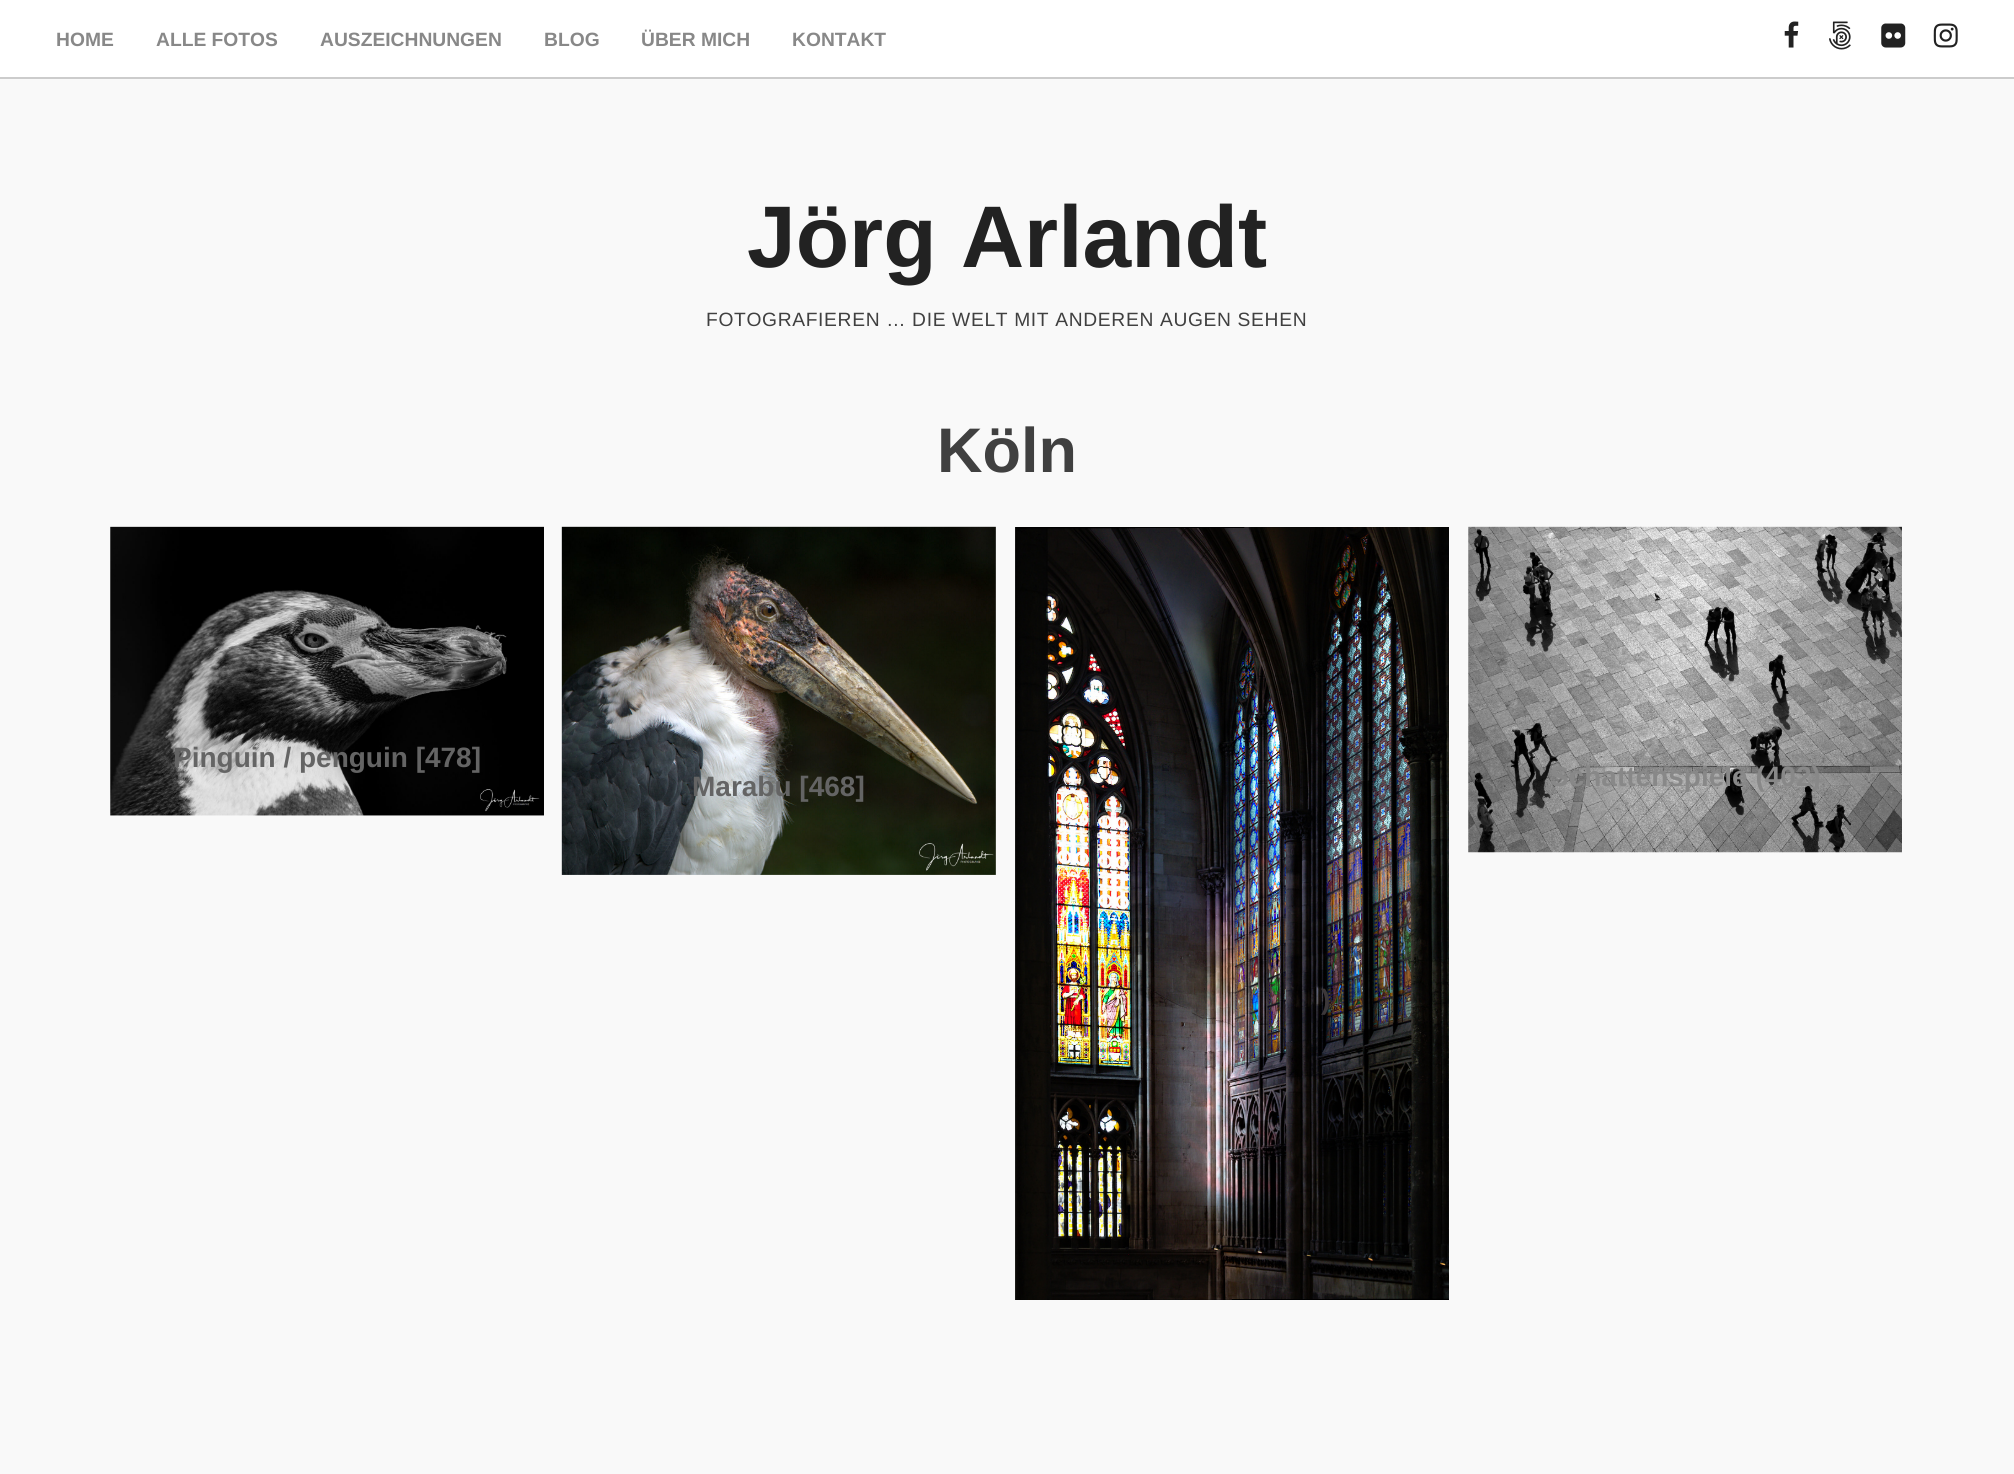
#include <cairo.h>
#include <math.h>
#include <stddef.h>

typedef struct { double x, y; const char *s; } line_t;

static void ink(cairo_t *ctx, unsigned color) {
    cairo_set_source_rgb(ctx, (color >> 16) / 255.0, (color >> 8 & 255) / 255.0, (color & 255) / 255.0);
}

static void write_spaced(cairo_t *ctx, double x, double y, const char *s, double letter, double word) {
    cairo_move_to(ctx, x, y);
    while (*s) {
        char ch[5] = {0};
        int n = 0;
        do ch[n++] = *s++; while ((*s & 0xC0) == 0x80);
        cairo_show_text(ctx, ch);
        cairo_rel_move_to(ctx, letter + word * (*ch == ' '), 0);
    }
}

static void paste(cairo_t *ctx, const char *path, double x, double y, double w, double h) {
    cairo_surface_t *image = cairo_image_surface_create_from_png(path);
    cairo_save(ctx);
    cairo_set_source_surface(ctx, image, x, y);
    cairo_rectangle(ctx, x, y, w, h);
    cairo_fill(ctx);
    cairo_restore(ctx);
    cairo_surface_destroy(image);
}

int main(void) {
    cairo_surface_t *surface = cairo_image_surface_create(CAIRO_FORMAT_RGB24, 2014, 1474);
    cairo_t *ctx = cairo_create(surface);
    cairo_font_options_t *options = cairo_font_options_create();
    cairo_font_options_set_hint_metrics(options, CAIRO_HINT_METRICS_OFF);
    cairo_font_options_set_hint_style(options, CAIRO_HINT_STYLE_NONE);
    cairo_set_font_options(ctx, options);
    cairo_set_miter_limit(ctx, 4);
    ink(ctx, 0xF9F9F9);
    cairo_paint(ctx);
    ink(ctx, 0xFFFFFF);
    cairo_rectangle(ctx, 0, 0, 2014, 77);
    cairo_fill(ctx);
    ink(ctx, 0xCCCCCC);
    cairo_rectangle(ctx, 0, 77, 2014, 2);
    cairo_fill(ctx);
    cairo_select_font_face(ctx, "Liberation Sans", CAIRO_FONT_SLANT_NORMAL, CAIRO_FONT_WEIGHT_BOLD);
    cairo_set_font_size(ctx, 19.25);
    ink(ctx, 0x888888);
    {
        static const line_t items[] = {
            {56, 46, "HOME"},
            {156, 46, "ALLE FOTOS"},
            {320, 46, "AUSZEICHNUNGEN"},
            {544, 46, "BLOG"},
            {641, 46, "ÜBER MICH"},
            {792, 46, "KONTAKT"},
        };
        for (size_t i = 0; i < sizeof items / sizeof *items; i++) {
            cairo_move_to(ctx, items[i].x, items[i].y);
            cairo_show_text(ctx, items[i].s);
        }
    }
    paste(ctx, "media/1.png", 1784, 21, 15, 27);
    paste(ctx, "media/2.png", 1829, 21, 22, 29);
    paste(ctx, "media/3.png", 1881, 23, 25, 25);
    paste(ctx, "media/4.png", 1933, 23, 25, 25);
    cairo_set_font_size(ctx, 87.5);
    ink(ctx, 0x222222);
    cairo_move_to(ctx, 747, 267);
    cairo_show_text(ctx, "Jörg Arlandt");
    cairo_select_font_face(ctx, "Liberation Sans", CAIRO_FONT_SLANT_NORMAL, CAIRO_FONT_WEIGHT_NORMAL);
    cairo_set_font_size(ctx, 19.25);
    ink(ctx, 0x404040);
    write_spaced(ctx, 706, 326, "FOTOGRAFIEREN … DIE WELT MIT ANDEREN AUGEN SEHEN", 0.65, 0);
    cairo_select_font_face(ctx, "Liberation Sans", CAIRO_FONT_SLANT_NORMAL, CAIRO_FONT_WEIGHT_BOLD);
    cairo_set_font_size(ctx, 63);
    cairo_move_to(ctx, 937, 472);
    cairo_show_text(ctx, "Köln");
    paste(ctx, "media/5.png", 110, 526, 434, 290);
    cairo_set_font_size(ctx, 28);
    ink(ctx, 0x646464);
    cairo_move_to(ctx, 173, 767);
    cairo_show_text(ctx, "Pinguin / penguin [478]");
    paste(ctx, "media/6.png", 561, 526, 435, 349);
    cairo_move_to(ctx, 692, 796);
    cairo_show_text(ctx, "Marabu [468]");
    paste(ctx, "media/7.png", 1468, 526, 434, 327);
    ink(ctx, 0x888888);
    cairo_move_to(ctx, 1550, 786);
    cairo_show_text(ctx, "Schattenspiele (402)");
    paste(ctx, "media/8.png", 1015, 527, 434, 773);
    ink(ctx, 0x3C3739);
    cairo_move_to(ctx, 1321, 1009);
    cairo_show_text(ctx, ")");
    cairo_surface_write_to_png(surface, "image.png");
    cairo_font_options_destroy(options);
    cairo_destroy(ctx);
    cairo_surface_destroy(surface);
    return 0;
}
